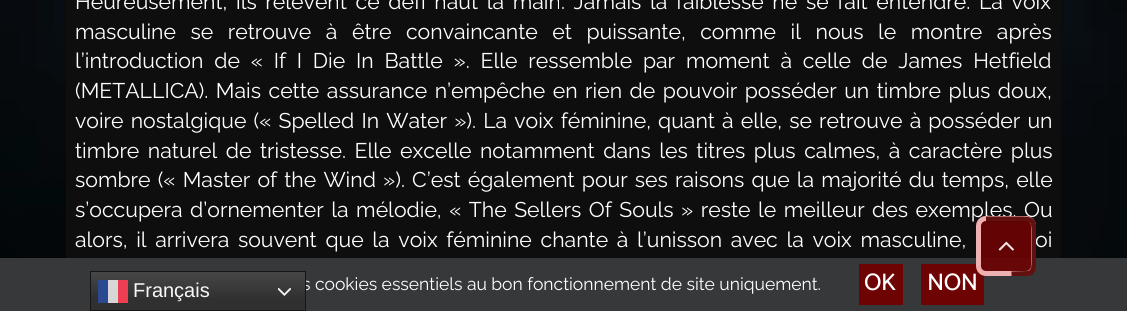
#include <cairo.h>
#include <math.h>
#include <stddef.h>


static void ink(cairo_t *ctx, unsigned color) {
    cairo_set_source_rgb(ctx, (color >> 16) / 255.0, (color >> 8 & 255) / 255.0, (color & 255) / 255.0);
}

static void write_spaced(cairo_t *ctx, double x, double y, const char *s, double letter, double word) {
    cairo_move_to(ctx, x, y);
    while (*s) {
        char ch[5] = {0};
        int n = 0;
        do ch[n++] = *s++; while ((*s & 0xC0) == 0x80);
        cairo_show_text(ctx, ch);
        cairo_rel_move_to(ctx, letter + word * (*ch == ' '), 0);
    }
}

static void round_path(cairo_t *ctx, double x, double y, double w, double h, double r) {
    cairo_new_sub_path(ctx);
    cairo_arc(ctx, x + w - r, y + h - r, r, 0, M_PI / 2);
    cairo_arc(ctx, x + r, y + h - r, r, M_PI / 2, M_PI);
    cairo_arc(ctx, x + r, y + r, r, M_PI, 1.5 * M_PI);
    cairo_arc(ctx, x + w - r, y + r, r, 1.5 * M_PI, 2 * M_PI);
    cairo_close_path(ctx);
}

static void paste(cairo_t *ctx, const char *path, double x, double y, double w, double h) {
    cairo_surface_t *image = cairo_image_surface_create_from_png(path);
    cairo_save(ctx);
    cairo_set_source_surface(ctx, image, x, y);
    cairo_rectangle(ctx, x, y, w, h);
    cairo_fill(ctx);
    cairo_restore(ctx);
    cairo_surface_destroy(image);
}

int main(void) {
    cairo_surface_t *surface = cairo_image_surface_create(CAIRO_FORMAT_RGB24, 1127, 311);
    cairo_t *ctx = cairo_create(surface);
    cairo_font_options_t *options = cairo_font_options_create();
    cairo_font_options_set_hint_metrics(options, CAIRO_HINT_METRICS_OFF);
    cairo_font_options_set_hint_style(options, CAIRO_HINT_STYLE_NONE);
    cairo_set_font_options(ctx, options);
    cairo_set_miter_limit(ctx, 4);
    cairo_pattern_t *gradient;
    ink(ctx, 0xFFFFFF);
    cairo_paint(ctx);
    paste(ctx, "media/1.png", 0, 0, 1127, 258);
    ink(ctx, 0x0E0E0E);
    cairo_rectangle(ctx, 66, 0, 995, 258);
    cairo_fill(ctx);
    cairo_select_font_face(ctx, "Raleway", CAIRO_FONT_SLANT_NORMAL, CAIRO_FONT_WEIGHT_NORMAL);
    cairo_set_font_size(ctx, 21.25);
    ink(ctx, 0xFFFFFF);
    write_spaced(ctx, 75, 9, "Heureusement, ils relèvent ce défi haut la main. Jamais la faiblesse ne se fait entendre. La voix", 0, 3.25);
    write_spaced(ctx, 75, 39, "masculine se retrouve à être convaincante et puissante, comme il nous le montre après", 0, 9.1);
    write_spaced(ctx, 75, 68, "l’introduction de « If I Die In Battle ». Elle ressemble par moment à celle de James Hetfield", 0, 5.4);
    write_spaced(ctx, 75, 98, "(METALLICA). Mais cette assurance n’empêche en rien de pouvoir posséder un timbre plus doux,", 0, 2.1);
    write_spaced(ctx, 75, 128, "voire nostalgique (« Spelled In Water »). La voix féminine, quant à elle, se retrouve à posséder un", 0, 1.7);
    write_spaced(ctx, 75, 158, "timbre naturel de tristesse. Elle excelle notamment dans les titres plus calmes, à caractère plus", 0, 3.1);
    write_spaced(ctx, 75, 187, "sombre (« Master of the Wind »). C’est également pour ses raisons que la majorité du temps, elle", 0, 1.75);
    write_spaced(ctx, 75, 217, "s’occupera d’ornementer la mélodie, « The Sellers Of Souls » reste le meilleur des exemples. Ou", 0, 2.1);
    write_spaced(ctx, 75, 247, "alors, il arrivera souvent que la voix féminine chante à l’unisson avec la voix masculine,", 0, 3.25);
    write_spaced(ctx, 1035, 247, "oi", 0, 3.25);
    ink(ctx, 0x363839);
    cairo_rectangle(ctx, 0, 258, 1127, 53);
    cairo_fill(ctx);
    ink(ctx, 0x6E0303);
    cairo_rectangle(ctx, 921, 264, 63, 41);
    cairo_fill(ctx);
    cairo_set_source_rgba(ctx, 0.431, 0.012, 0.012, 0.9);
    round_path(ctx, 976, 216, 60, 60, 10);
    cairo_fill(ctx);
    round_path(ctx, 978.5, 218.5, 55, 55, 7.5);
    cairo_set_source_rgba(ctx, 0.992, 0.765, 0.765, 0.9);
    cairo_set_line_width(ctx, 5);
    cairo_stroke(ctx);
    cairo_save(ctx);
    cairo_rectangle(ctx, 976, 216, 60, 60);
    cairo_clip(ctx);
    cairo_new_path(ctx);
    cairo_move_to(ctx, 986, 219);
    cairo_line_to(ctx, 1021, 219);
    cairo_curve_to(ctx, 1032, 219, 1034, 220.5, 1034, 231);
    cairo_line_to(ctx, 1034, 261);
    cairo_curve_to(ctx, 1034, 266, 1034, 272.5, 1028, 273.5);
    cairo_line_to(ctx, 1011.5, 274);
    cairo_set_source_rgba(ctx, 0.329, 0, 0, 0.9);
    cairo_stroke(ctx);
    cairo_restore(ctx);
    paste(ctx, "media/2.png", 998, 241, 16, 10);
    cairo_set_font_size(ctx, 17.5);
    ink(ctx, 0xFFFFFF);
    cairo_move_to(ctx, 302, 290);
    cairo_show_text(ctx, "s cookies essentiels au bon fonctionnement de site uniquement.");
    gradient = cairo_pattern_create_linear(198, 271, 198, 311);
    cairo_pattern_add_color_stop_rgba(gradient, 0, 0.278, 0.278, 0.278, 1);
    cairo_pattern_add_color_stop_rgba(gradient, 0.7, 0.188, 0.188, 0.188, 1);
    cairo_set_source(ctx, gradient);
    cairo_pattern_destroy(gradient);
    cairo_rectangle(ctx, 91, 272, 214, 38);
    cairo_fill(ctx);
    cairo_rectangle(ctx, 90.5, 271.5, 215, 39);
    ink(ctx, 0x161616);
    cairo_set_line_width(ctx, 1);
    cairo_stroke(ctx);
    cairo_set_source_rgba(ctx, 1, 1, 1, 0.8);
    cairo_rectangle(ctx, 98, 280, 30, 23);
    cairo_fill(ctx);
    cairo_set_source_rgba(ctx, 0, 0.149, 0.498, 0.8);
    cairo_rectangle(ctx, 98, 280, 10, 23);
    cairo_fill(ctx);
    cairo_set_source_rgba(ctx, 0.953, 0.094, 0.188, 0.8);
    cairo_rectangle(ctx, 118, 280, 10, 23);
    cairo_fill(ctx);
    cairo_select_font_face(ctx, "Liberation Sans", CAIRO_FONT_SLANT_NORMAL, CAIRO_FONT_WEIGHT_NORMAL);
    cairo_set_font_size(ctx, 20);
    ink(ctx, 0xF7F7F7);
    cairo_move_to(ctx, 133, 297);
    cairo_show_text(ctx, "Français");
    paste(ctx, "media/3.png", 278, 287, 13, 9);
    ink(ctx, 0x6E0303);
    cairo_rectangle(ctx, 859, 264, 44, 41);
    cairo_fill(ctx);
    cairo_select_font_face(ctx, "Catamaran Medium", CAIRO_FONT_SLANT_NORMAL, CAIRO_FONT_WEIGHT_NORMAL);
    cairo_set_font_size(ctx, 24);
    ink(ctx, 0xFFFFFF);
    write_spaced(ctx, 864, 290, "OK", -0.5, 0);
    write_spaced(ctx, 927, 290, "NON", -0.5, 0);
    cairo_surface_write_to_png(surface, "image.png");
    cairo_font_options_destroy(options);
    cairo_destroy(ctx);
    cairo_surface_destroy(surface);
    return 0;
}
